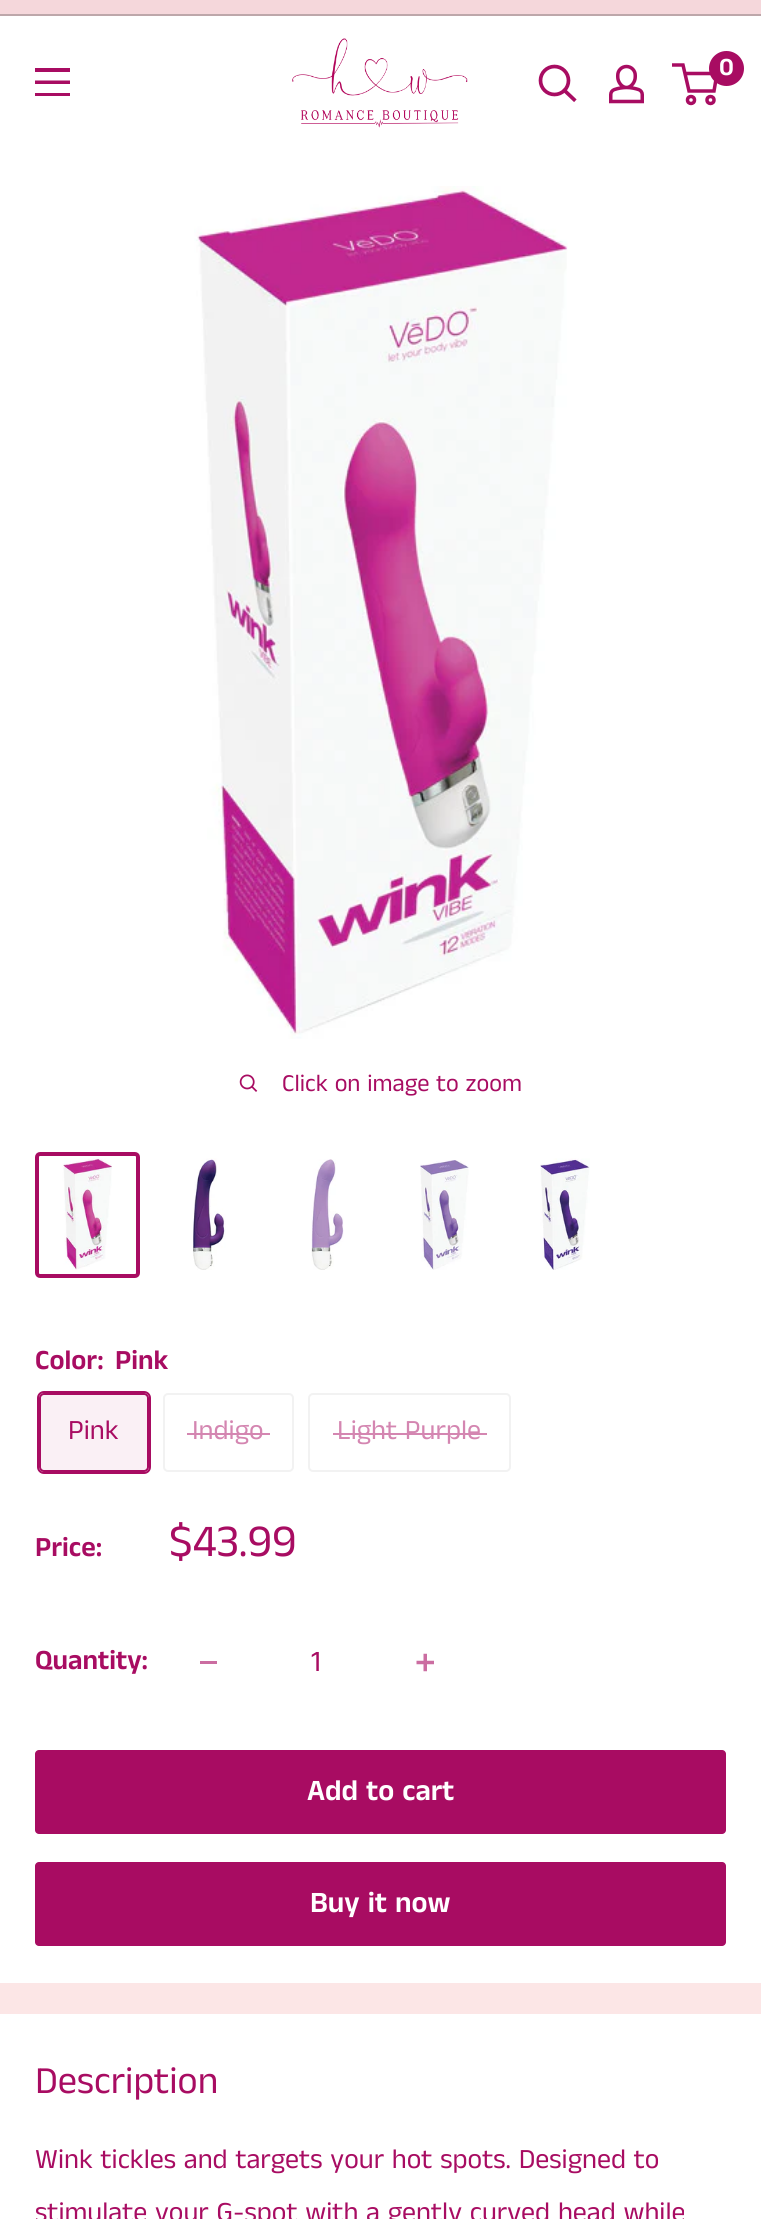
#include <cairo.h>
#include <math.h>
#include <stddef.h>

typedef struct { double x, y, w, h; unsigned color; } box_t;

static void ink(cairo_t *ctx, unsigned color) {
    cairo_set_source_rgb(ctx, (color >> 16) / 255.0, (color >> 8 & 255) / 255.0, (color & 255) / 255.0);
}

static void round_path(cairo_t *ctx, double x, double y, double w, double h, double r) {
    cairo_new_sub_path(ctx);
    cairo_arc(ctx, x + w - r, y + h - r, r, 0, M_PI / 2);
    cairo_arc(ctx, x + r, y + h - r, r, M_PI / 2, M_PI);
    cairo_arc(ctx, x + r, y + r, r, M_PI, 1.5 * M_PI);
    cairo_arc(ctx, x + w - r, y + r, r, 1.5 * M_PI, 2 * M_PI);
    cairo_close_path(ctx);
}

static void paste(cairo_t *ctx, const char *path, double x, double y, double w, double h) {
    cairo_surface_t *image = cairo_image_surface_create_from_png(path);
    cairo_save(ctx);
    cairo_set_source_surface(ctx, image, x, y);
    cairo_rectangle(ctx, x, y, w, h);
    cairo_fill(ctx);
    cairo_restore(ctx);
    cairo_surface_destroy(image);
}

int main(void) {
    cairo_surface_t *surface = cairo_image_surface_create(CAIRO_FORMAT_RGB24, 761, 2219);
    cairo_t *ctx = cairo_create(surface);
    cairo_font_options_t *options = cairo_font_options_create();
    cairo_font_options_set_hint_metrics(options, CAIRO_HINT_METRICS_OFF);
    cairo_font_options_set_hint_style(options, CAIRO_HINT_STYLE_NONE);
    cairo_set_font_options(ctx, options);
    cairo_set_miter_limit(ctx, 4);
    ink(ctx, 0xFCE6E6);
    cairo_paint(ctx);
    {
        static const box_t items[] = {
            {0, 0, 761, 14, 0xF5D7DB},
            {0, 14, 761, 2, 0xBDA7AA},
            {0, 16, 761, 1967, 0xFFFFFF},
        };
        for (size_t i = 0; i < sizeof items / sizeof *items; i++) {
            ink(ctx, items[i].color);
            cairo_rectangle(ctx, items[i].x, items[i].y, items[i].w, items[i].h);
            cairo_fill(ctx);
        }
    }
    ink(ctx, 0xA80C62);
    cairo_set_fill_rule(ctx, CAIRO_FILL_RULE_EVEN_ODD);
    cairo_new_path(ctx);
    cairo_move_to(ctx, 35, 93);
    cairo_line_to(ctx, 70, 93);
    cairo_line_to(ctx, 70, 96);
    cairo_line_to(ctx, 35, 96);
    cairo_close_path(ctx);
    cairo_move_to(ctx, 35, 68);
    cairo_line_to(ctx, 70, 68);
    cairo_line_to(ctx, 70, 72);
    cairo_line_to(ctx, 35, 72);
    cairo_close_path(ctx);
    cairo_move_to(ctx, 35, 80.5);
    cairo_line_to(ctx, 70, 80.5);
    cairo_line_to(ctx, 70, 84);
    cairo_line_to(ctx, 35, 84);
    cairo_close_path(ctx);
    cairo_fill(ctx);
    paste(ctx, "media/1.png", 292, 38, 176, 90);
    cairo_new_path(ctx);
    cairo_move_to(ctx, 574, 99.5);
    cairo_line_to(ctx, 564.5, 90.5);
    cairo_set_line_width(ctx, 3.7);
    cairo_set_line_cap(ctx, CAIRO_LINE_CAP_SQUARE);
    cairo_stroke(ctx);
    cairo_arc(ctx, 554.5, 80.5, 14, 0, 2 * M_PI);
    cairo_set_line_cap(ctx, CAIRO_LINE_CAP_BUTT);
    cairo_stroke(ctx);
    paste(ctx, "media/2.png", 609, 64, 35, 40);
    cairo_arc(ctx, 691, 100, 3.5, 0, 2 * M_PI);
    cairo_set_line_width(ctx, 3.5);
    cairo_stroke(ctx);
    cairo_arc(ctx, 710.5, 100, 3.5, 0, 2 * M_PI);
    cairo_stroke(ctx);
    cairo_new_path(ctx);
    cairo_move_to(ctx, 685, 73.5);
    cairo_line_to(ctx, 717, 73.5);
    cairo_line_to(ctx, 714, 91);
    cairo_line_to(ctx, 689, 91);
    cairo_line_to(ctx, 683, 65);
    cairo_line_to(ctx, 672, 65);
    cairo_stroke(ctx);
    cairo_arc(ctx, 726.5, 68.5, 17.5, 0, 2 * M_PI);
    cairo_fill(ctx);
    cairo_select_font_face(ctx, "Anek Tamil SemiBold", CAIRO_FONT_SLANT_NORMAL, CAIRO_FONT_WEIGHT_NORMAL);
    cairo_set_font_size(ctx, 25);
    ink(ctx, 0xFFFFFF);
    cairo_move_to(ctx, 719, 75);
    cairo_show_text(ctx, "0");
    paste(ctx, "media/3.png", 194, 186, 374, 853);
    paste(ctx, "media/4.png", 239, 1074, 19, 18);
    cairo_select_font_face(ctx, "Anek Tamil", CAIRO_FONT_SLANT_NORMAL, CAIRO_FONT_WEIGHT_NORMAL);
    cairo_set_font_size(ctx, 24.5);
    ink(ctx, 0xA80C62);
    cairo_move_to(ctx, 282, 1091);
    cairo_show_text(ctx, "Click on image to zoom");
    round_path(ctx, 37, 1154, 101, 122, 3);
    cairo_set_line_width(ctx, 4);
    cairo_stroke(ctx);
    paste(ctx, "media/5.png", 62, 1158, 50, 112);
    paste(ctx, "media/6.png", 193, 1158, 33, 112);
    paste(ctx, "media/7.png", 311, 1159, 33, 111);
    paste(ctx, "media/8.png", 420, 1160, 49, 110);
    paste(ctx, "media/9.png", 540, 1158, 50, 112);
    cairo_select_font_face(ctx, "Anek Tamil SemiBold", CAIRO_FONT_SLANT_NORMAL, CAIRO_FONT_WEIGHT_NORMAL);
    cairo_set_font_size(ctx, 28);
    cairo_move_to(ctx, 35, 1369);
    cairo_show_text(ctx, "Color:");
    cairo_move_to(ctx, 115, 1369);
    cairo_show_text(ctx, "Pink");
    round_path(ctx, 38, 1392, 112, 81, 6);
    cairo_set_line_width(ctx, 2);
    cairo_stroke(ctx);
    cairo_set_source_rgba(ctx, 0.659, 0.047, 0.384, 0.06);
    cairo_rectangle(ctx, 39, 1393, 110, 79);
    cairo_fill(ctx);
    round_path(ctx, 40, 1394, 108, 77, 4);
    ink(ctx, 0xA80C62);
    cairo_stroke(ctx);
    cairo_select_font_face(ctx, "Anek Tamil", CAIRO_FONT_SLANT_NORMAL, CAIRO_FONT_WEIGHT_NORMAL);
    cairo_move_to(ctx, 68, 1439);
    cairo_show_text(ctx, "Pink");
    round_path(ctx, 164, 1394, 129, 77, 4);
    ink(ctx, 0xF2F2F2);
    cairo_stroke(ctx);
    ink(ctx, 0xD486B1);
    cairo_move_to(ctx, 192, 1439);
    cairo_show_text(ctx, "Indigo");
    cairo_rectangle(ctx, 187, 1433, 83, 2);
    cairo_fill(ctx);
    round_path(ctx, 309, 1394, 201, 77, 4);
    ink(ctx, 0xF2F2F2);
    cairo_stroke(ctx);
    ink(ctx, 0xD486B1);
    cairo_move_to(ctx, 337, 1439);
    cairo_show_text(ctx, "Light Purple");
    cairo_rectangle(ctx, 333, 1433, 154, 2);
    cairo_fill(ctx);
    cairo_select_font_face(ctx, "Anek Tamil SemiBold", CAIRO_FONT_SLANT_NORMAL, CAIRO_FONT_WEIGHT_NORMAL);
    ink(ctx, 0xA80C62);
    cairo_move_to(ctx, 35, 1556);
    cairo_show_text(ctx, "Price:");
    cairo_select_font_face(ctx, "Anek Tamil", CAIRO_FONT_SLANT_NORMAL, CAIRO_FONT_WEIGHT_NORMAL);
    cairo_set_font_size(ctx, 45.5);
    cairo_move_to(ctx, 169, 1556);
    cairo_show_text(ctx, "$43.99");
    cairo_select_font_face(ctx, "Anek Tamil SemiBold", CAIRO_FONT_SLANT_NORMAL, CAIRO_FONT_WEIGHT_NORMAL);
    cairo_set_font_size(ctx, 28);
    cairo_move_to(ctx, 35, 1669);
    cairo_show_text(ctx, "Quantity:");
    ink(ctx, 0xCB6DA1);
    cairo_rectangle(ctx, 200, 1661, 17, 3);
    cairo_fill(ctx);
    cairo_select_font_face(ctx, "Anek Tamil", CAIRO_FONT_SLANT_NORMAL, CAIRO_FONT_WEIGHT_NORMAL);
    cairo_set_font_size(ctx, 29.75);
    ink(ctx, 0xA80C62);
    cairo_move_to(ctx, 311, 1671);
    cairo_show_text(ctx, "1");
    paste(ctx, "media/10.png", 416, 1653, 18, 19);
    round_path(ctx, 35, 1750, 691, 84, 4);
    cairo_fill(ctx);
    cairo_select_font_face(ctx, "Anek Tamil SemiBold", CAIRO_FONT_SLANT_NORMAL, CAIRO_FONT_WEIGHT_NORMAL);
    ink(ctx, 0xFFFFFF);
    cairo_move_to(ctx, 307, 1800);
    cairo_show_text(ctx, "Add to cart");
    ink(ctx, 0xA80C62);
    round_path(ctx, 35, 1862, 691, 84, 4);
    cairo_fill(ctx);
    ink(ctx, 0xFFFFFF);
    cairo_move_to(ctx, 310, 1912);
    cairo_show_text(ctx, "Buy it now");
    cairo_rectangle(ctx, 0, 2014, 761, 205);
    cairo_fill(ctx);
    cairo_select_font_face(ctx, "Anek Tamil", CAIRO_FONT_SLANT_NORMAL, CAIRO_FONT_WEIGHT_NORMAL);
    cairo_set_font_size(ctx, 38.5);
    ink(ctx, 0xA80C62);
    cairo_move_to(ctx, 35, 2093);
    cairo_show_text(ctx, "Description");
    cairo_set_font_size(ctx, 28);
    cairo_move_to(ctx, 35, 2168);
    cairo_show_text(ctx, "Wink tickles and targets your hot spots. Designed to");
    cairo_move_to(ctx, 35, 2221);
    cairo_show_text(ctx, "stimulate your G-spot with a gently curved head while");
    cairo_surface_write_to_png(surface, "image.png");
    cairo_font_options_destroy(options);
    cairo_destroy(ctx);
    cairo_surface_destroy(surface);
    return 0;
}
